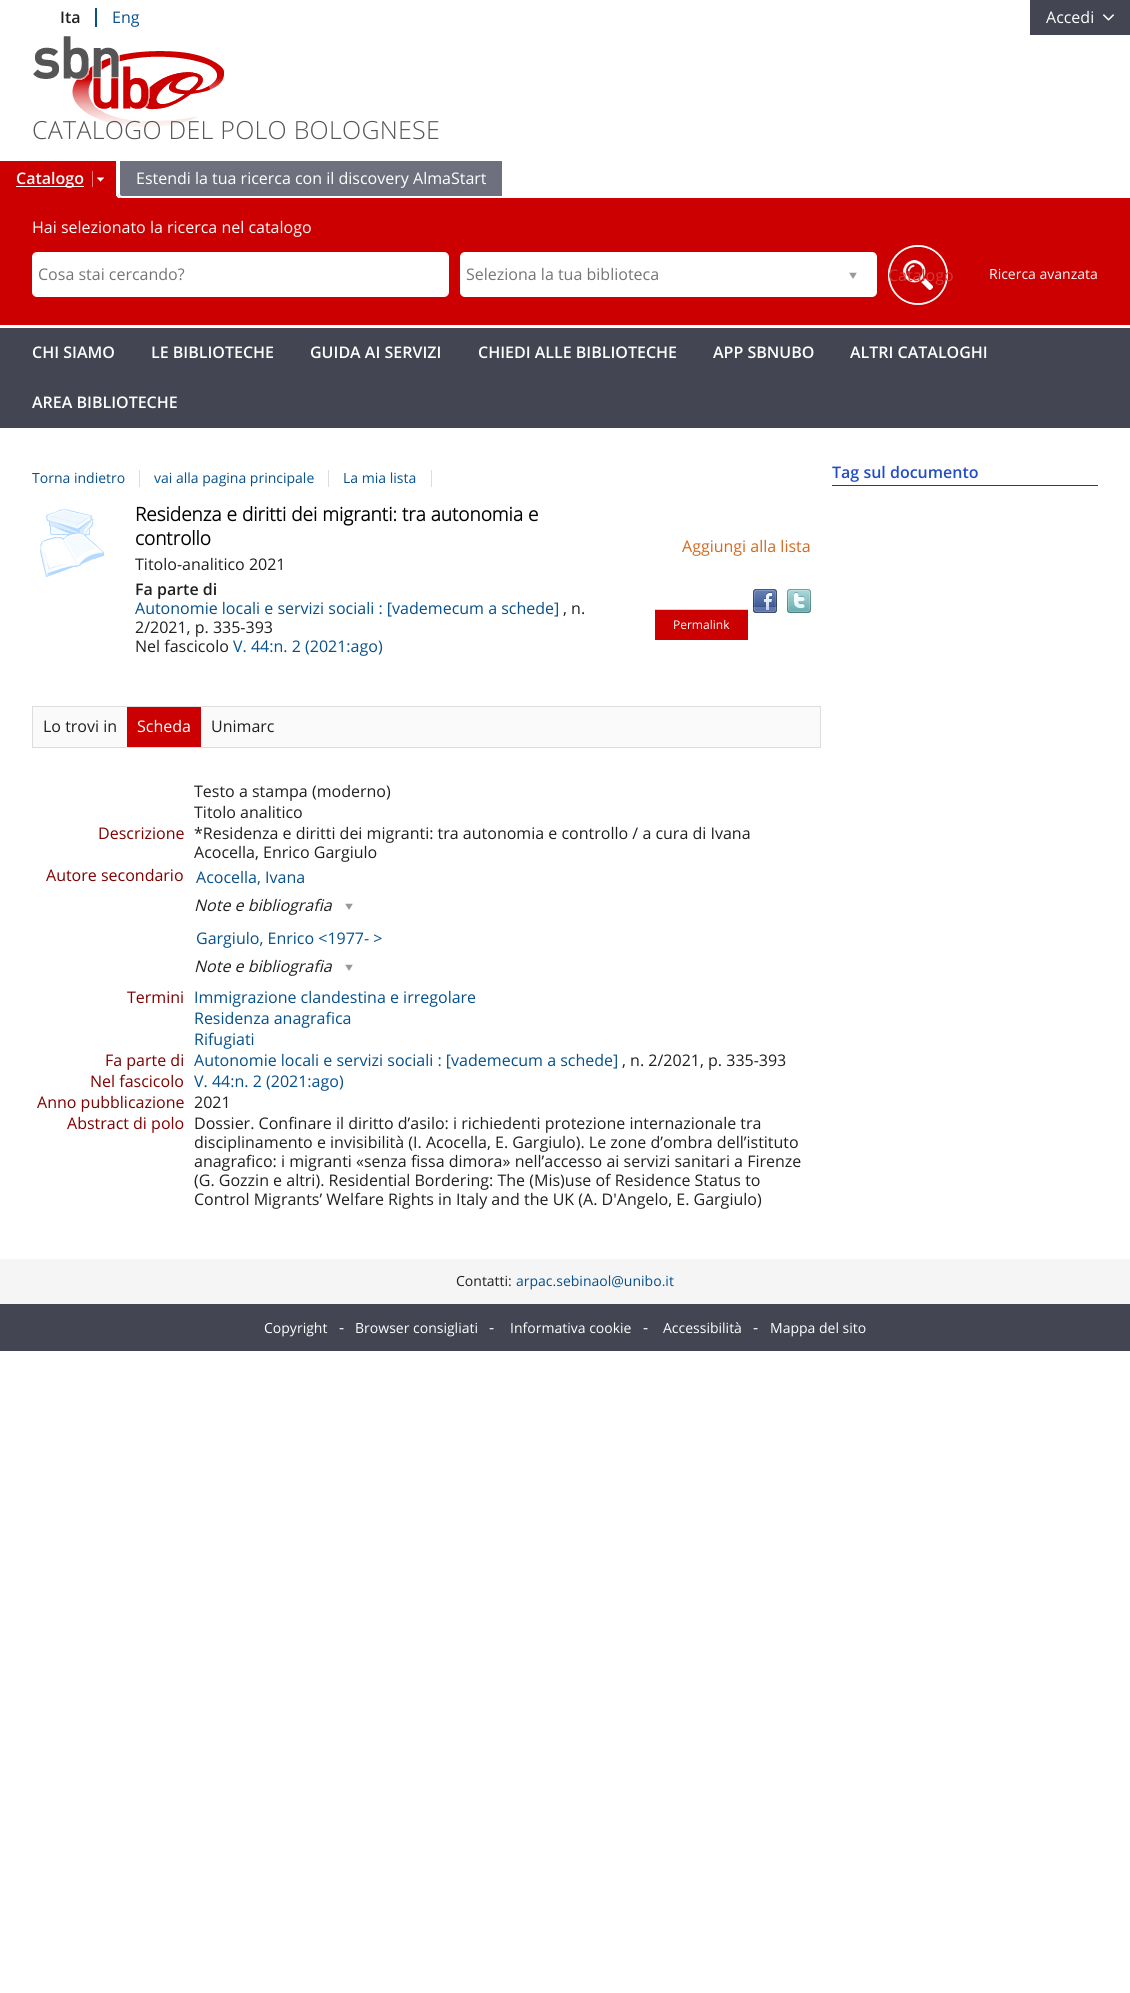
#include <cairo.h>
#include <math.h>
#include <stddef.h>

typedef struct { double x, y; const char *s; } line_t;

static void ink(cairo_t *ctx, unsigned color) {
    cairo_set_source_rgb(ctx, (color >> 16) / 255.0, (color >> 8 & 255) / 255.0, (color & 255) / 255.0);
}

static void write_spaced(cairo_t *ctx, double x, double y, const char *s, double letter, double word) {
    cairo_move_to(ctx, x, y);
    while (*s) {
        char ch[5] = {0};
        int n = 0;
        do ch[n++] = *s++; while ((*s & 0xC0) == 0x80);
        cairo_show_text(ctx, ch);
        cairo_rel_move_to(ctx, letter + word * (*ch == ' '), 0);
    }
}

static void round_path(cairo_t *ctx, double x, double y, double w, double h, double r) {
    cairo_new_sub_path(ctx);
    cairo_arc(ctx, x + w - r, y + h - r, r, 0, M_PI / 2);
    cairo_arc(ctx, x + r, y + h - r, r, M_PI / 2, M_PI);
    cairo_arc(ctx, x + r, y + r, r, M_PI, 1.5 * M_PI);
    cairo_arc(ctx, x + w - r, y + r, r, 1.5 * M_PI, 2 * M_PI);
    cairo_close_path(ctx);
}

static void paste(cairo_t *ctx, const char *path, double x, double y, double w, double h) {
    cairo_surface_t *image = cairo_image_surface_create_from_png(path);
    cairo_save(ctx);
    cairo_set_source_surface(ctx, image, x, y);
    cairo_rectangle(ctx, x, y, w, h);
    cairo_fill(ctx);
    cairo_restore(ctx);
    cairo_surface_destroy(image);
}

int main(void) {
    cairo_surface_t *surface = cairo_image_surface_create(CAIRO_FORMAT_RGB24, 1130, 1993);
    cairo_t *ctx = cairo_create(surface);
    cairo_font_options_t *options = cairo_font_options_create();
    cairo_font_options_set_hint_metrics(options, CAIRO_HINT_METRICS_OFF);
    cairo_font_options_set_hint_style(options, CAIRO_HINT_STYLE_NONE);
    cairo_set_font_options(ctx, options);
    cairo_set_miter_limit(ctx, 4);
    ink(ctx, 0xFFFFFF);
    cairo_paint(ctx);
    cairo_select_font_face(ctx, "Open Sans SemiBold", CAIRO_FONT_SLANT_NORMAL, CAIRO_FONT_WEIGHT_NORMAL);
    cairo_set_font_size(ctx, 16);
    ink(ctx, 0x202020);
    cairo_move_to(ctx, 60, 23);
    cairo_show_text(ctx, "Ita");
    ink(ctx, 0x06508C);
    cairo_rectangle(ctx, 95, 8, 2, 19);
    cairo_fill(ctx);
    cairo_select_font_face(ctx, "Open Sans", CAIRO_FONT_SLANT_NORMAL, CAIRO_FONT_WEIGHT_NORMAL);
    cairo_move_to(ctx, 112, 23);
    cairo_show_text(ctx, "Eng");
    ink(ctx, 0x434553);
    cairo_rectangle(ctx, 1030, 0, 100, 35);
    cairo_fill(ctx);
    paste(ctx, "media/1.png", 1103, 14, 11, 7);
    ink(ctx, 0xFFFFFF);
    cairo_move_to(ctx, 1046, 23);
    cairo_show_text(ctx, "Accedi");
    paste(ctx, "media/2.png", 33, 36, 191, 91);
    cairo_select_font_face(ctx, "Open Sans Light", CAIRO_FONT_SLANT_NORMAL, CAIRO_FONT_WEIGHT_NORMAL);
    cairo_set_font_size(ctx, 25);
    ink(ctx, 0x555555);
    write_spaced(ctx, 32, 139, "CATALOGO DEL POLO BOLOGNESE", 0.25, 0);
    ink(ctx, 0xCC0000);
    cairo_rectangle(ctx, 0, 161, 118, 37);
    cairo_fill(ctx);
    cairo_save(ctx);
    cairo_rectangle(ctx, 0, 161, 1130, 37);
    cairo_clip(ctx);
    ink(ctx, 0xFFFFFF);
    cairo_new_path(ctx);
    cairo_move_to(ctx, 118, 159);
    cairo_line_to(ctx, 118, 198);
    cairo_line_to(ctx, 116, 196);
    cairo_line_to(ctx, 116, 161);
    cairo_close_path(ctx);
    cairo_fill(ctx);
    cairo_restore(ctx);
    cairo_new_path(ctx);
    cairo_move_to(ctx, 118, 198);
    cairo_line_to(ctx, -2, 198);
    cairo_line_to(ctx, 0, 196);
    cairo_line_to(ctx, 116, 196);
    cairo_close_path(ctx);
    cairo_fill(ctx);
    ink(ctx, 0xFFFFFF);
    cairo_rectangle(ctx, 16, 186, 68, 1);
    cairo_fill(ctx);
    cairo_select_font_face(ctx, "Open Sans SemiBold", CAIRO_FONT_SLANT_NORMAL, CAIRO_FONT_WEIGHT_NORMAL);
    cairo_set_font_size(ctx, 16);
    cairo_move_to(ctx, 16, 184);
    cairo_show_text(ctx, "Catalogo");
    paste(ctx, "media/3.png", 92, 171, 12, 16);
    ink(ctx, 0x6E707E);
    cairo_new_path(ctx);
    cairo_move_to(ctx, 118, 161);
    cairo_line_to(ctx, 504, 161);
    cairo_line_to(ctx, 504, 198);
    cairo_line_to(ctx, 122, 198);
    cairo_curve_to(ctx, 120, 198, 118, 196, 118, 194);
    cairo_close_path(ctx);
    cairo_fill(ctx);
    cairo_save(ctx);
    cairo_rectangle(ctx, 0, 161, 1130, 37);
    cairo_clip(ctx);
    cairo_new_path(ctx);
    cairo_move_to(ctx, 119, 160);
    cairo_line_to(ctx, 503, 160);
    cairo_line_to(ctx, 503, 197);
    cairo_line_to(ctx, 122, 197);
    cairo_curve_to(ctx, 120.5, 197, 119, 195.5, 119, 194);
    cairo_close_path(ctx);
    ink(ctx, 0xFFFFFF);
    cairo_stroke(ctx);
    cairo_restore(ctx);
    cairo_select_font_face(ctx, "Open Sans", CAIRO_FONT_SLANT_NORMAL, CAIRO_FONT_WEIGHT_NORMAL);
    ink(ctx, 0xFFFFFF);
    cairo_move_to(ctx, 136, 184);
    cairo_show_text(ctx, "Estendi la tua ricerca con il discovery AlmaStart");
    ink(ctx, 0xCC0000);
    cairo_rectangle(ctx, 0, 198, 1130, 127);
    cairo_fill(ctx);
    ink(ctx, 0xFFFFFF);
    cairo_move_to(ctx, 32, 233);
    cairo_show_text(ctx, "Hai selezionato la ricerca nel catalogo");
    round_path(ctx, 32, 252, 417, 45, 5);
    cairo_fill(ctx);
    ink(ctx, 0x757575);
    cairo_move_to(ctx, 38, 280);
    cairo_show_text(ctx, "Cosa stai cercando?");
    ink(ctx, 0xFFFFFF);
    round_path(ctx, 460, 252, 417, 45, 5);
    cairo_fill(ctx);
    ink(ctx, 0x757575);
    cairo_move_to(ctx, 466, 280);
    cairo_show_text(ctx, "Seleziona la tua biblioteca");
    paste(ctx, "media/4.png", 849, 272, 8, 7);
    paste(ctx, "media/5.png", 888, 245, 60, 60);
    ink(ctx, 0xD73838);
    cairo_move_to(ctx, 888, 281);
    cairo_show_text(ctx, "Catalogo");
    cairo_set_font_size(ctx, 14);
    ink(ctx, 0xFFFFFF);
    cairo_move_to(ctx, 989, 279);
    cairo_show_text(ctx, "Ricerca avanzata");
    ink(ctx, 0x434553);
    cairo_rectangle(ctx, 0, 328, 1130, 100);
    cairo_fill(ctx);
    cairo_select_font_face(ctx, "Open Sans SemiBold", CAIRO_FONT_SLANT_NORMAL, CAIRO_FONT_WEIGHT_NORMAL);
    cairo_set_font_size(ctx, 16);
    ink(ctx, 0xFFFFFF);
    {
        static const line_t items[] = {
            {32, 358, "CHI SIAMO"},
            {151, 358, "LE BIBLIOTECHE"},
            {310, 358, "GUIDA AI SERVIZI"},
            {478, 358, "CHIEDI ALLE BIBLIOTECHE"},
            {713, 358, "APP SBNUBO"},
            {850, 358, "ALTRI CATALOGHI"},
            {32, 408, "AREA BIBLIOTECHE"},
        };
        for (size_t i = 0; i < sizeof items / sizeof *items; i++) {
            cairo_move_to(ctx, items[i].x, items[i].y);
            cairo_show_text(ctx, items[i].s);
        }
    }
    cairo_select_font_face(ctx, "Open Sans", CAIRO_FONT_SLANT_NORMAL, CAIRO_FONT_WEIGHT_NORMAL);
    cairo_set_font_size(ctx, 14);
    ink(ctx, 0x06508C);
    cairo_move_to(ctx, 32, 483);
    cairo_show_text(ctx, "Torna indietro");
    ink(ctx, 0xDDDDDD);
    cairo_rectangle(ctx, 139, 470, 1, 17);
    cairo_fill(ctx);
    ink(ctx, 0x06508C);
    cairo_move_to(ctx, 154, 483);
    cairo_show_text(ctx, "vai alla pagina principale");
    ink(ctx, 0xDDDDDD);
    cairo_rectangle(ctx, 328, 470, 1, 17);
    cairo_fill(ctx);
    ink(ctx, 0x06508C);
    cairo_move_to(ctx, 343, 483);
    cairo_show_text(ctx, "La mia lista");
    ink(ctx, 0xDDDDDD);
    cairo_rectangle(ctx, 431, 470, 1, 17);
    cairo_fill(ctx);
    paste(ctx, "media/6.png", 40, 509, 65, 69);
    cairo_select_font_face(ctx, "Open Sans", CAIRO_FONT_SLANT_NORMAL, CAIRO_FONT_WEIGHT_BOLD);
    cairo_set_font_size(ctx, 19);
    ink(ctx, 0x000000);
    cairo_move_to(ctx, 135, 521);
    cairo_show_text(ctx, "Residenza e diritti dei migranti: tra autonomia e");
    cairo_move_to(ctx, 135, 545);
    cairo_show_text(ctx, "controllo");
    cairo_select_font_face(ctx, "Open Sans", CAIRO_FONT_SLANT_NORMAL, CAIRO_FONT_WEIGHT_NORMAL);
    cairo_set_font_size(ctx, 16);
    ink(ctx, 0x202020);
    cairo_move_to(ctx, 135, 570);
    cairo_show_text(ctx, "Titolo-analitico 2021");
    ink(ctx, 0xD2691E);
    cairo_move_to(ctx, 682, 552);
    cairo_show_text(ctx, "Aggiungi alla lista");
    paste(ctx, "media/7.png", 753, 589, 24, 24);
    paste(ctx, "media/8.png", 787, 589, 24, 24);
    ink(ctx, 0xD3D3D3);
    cairo_rectangle(ctx, 655, 609, 93, 1);
    cairo_fill(ctx);
    ink(ctx, 0xCC0000);
    cairo_rectangle(ctx, 655, 610, 93, 30);
    cairo_fill(ctx);
    cairo_set_font_size(ctx, 12);
    ink(ctx, 0xFFFFFF);
    cairo_move_to(ctx, 673, 629);
    cairo_show_text(ctx, "Permalink");
    cairo_select_font_face(ctx, "Open Sans SemiBold", CAIRO_FONT_SLANT_NORMAL, CAIRO_FONT_WEIGHT_NORMAL);
    cairo_set_font_size(ctx, 16);
    ink(ctx, 0x202020);
    cairo_move_to(ctx, 135, 595);
    cairo_show_text(ctx, "Fa parte di");
    cairo_select_font_face(ctx, "Open Sans", CAIRO_FONT_SLANT_NORMAL, CAIRO_FONT_WEIGHT_NORMAL);
    ink(ctx, 0x06508C);
    cairo_move_to(ctx, 135, 614);
    cairo_show_text(ctx, "Autonomie locali e servizi sociali : [vademecum a schede]");
    ink(ctx, 0x202020);
    {
        static const line_t items[] = {
            {563, 614, ", n."},
            {135, 633, "2/2021, p. 335-393"},
            {135, 652, "Nel fascicolo"},
        };
        for (size_t i = 0; i < sizeof items / sizeof *items; i++) {
            cairo_move_to(ctx, items[i].x, items[i].y);
            cairo_show_text(ctx, items[i].s);
        }
    }
    ink(ctx, 0x06508C);
    cairo_move_to(ctx, 233, 652);
    cairo_show_text(ctx, "V. 44:n. 2 (2021:ago)");
    ink(ctx, 0xFAFAFA);
    cairo_rectangle(ctx, 32.5, 706.5, 788, 41);
    cairo_fill_preserve(ctx);
    ink(ctx, 0xDDDDDD);
    cairo_set_line_width(ctx, 1);
    cairo_stroke(ctx);
    ink(ctx, 0x202020);
    cairo_move_to(ctx, 43, 732);
    cairo_show_text(ctx, "Lo trovi in");
    ink(ctx, 0xCC0000);
    cairo_rectangle(ctx, 127, 707, 74, 40);
    cairo_fill(ctx);
    ink(ctx, 0xFFFFFF);
    cairo_move_to(ctx, 137, 732);
    cairo_show_text(ctx, "Scheda");
    ink(ctx, 0x202020);
    {
        static const line_t items[] = {
            {211, 732, "Unimarc"},
            {194, 797, "Testo a stampa (moderno)"},
            {194, 818, "Titolo analitico"},
        };
        for (size_t i = 0; i < sizeof items / sizeof *items; i++) {
            cairo_move_to(ctx, items[i].x, items[i].y);
            cairo_show_text(ctx, items[i].s);
        }
    }
    ink(ctx, 0x800000);
    cairo_move_to(ctx, 98, 839);
    cairo_show_text(ctx, "Descrizione");
    ink(ctx, 0x202020);
    cairo_move_to(ctx, 194, 839);
    cairo_show_text(ctx, "*Residenza e diritti dei migranti: tra autonomia e controllo / a cura di Ivana");
    cairo_move_to(ctx, 194, 858);
    cairo_show_text(ctx, "Acocella, Enrico Gargiulo");
    ink(ctx, 0x800000);
    cairo_move_to(ctx, 46, 881);
    cairo_show_text(ctx, "Autore secondario");
    ink(ctx, 0x06508C);
    cairo_move_to(ctx, 196, 883);
    cairo_show_text(ctx, "Acocella, Ivana");
    paste(ctx, "media/4.png", 345, 903, 8, 7);
    cairo_select_font_face(ctx, "Open Sans", CAIRO_FONT_SLANT_ITALIC, CAIRO_FONT_WEIGHT_NORMAL);
    ink(ctx, 0x202020);
    cairo_move_to(ctx, 194, 911);
    cairo_show_text(ctx, "Note e bibliografia");
    cairo_select_font_face(ctx, "Open Sans", CAIRO_FONT_SLANT_NORMAL, CAIRO_FONT_WEIGHT_NORMAL);
    ink(ctx, 0x06508C);
    cairo_move_to(ctx, 196, 944);
    cairo_show_text(ctx, "Gargiulo, Enrico <1977- >");
    paste(ctx, "media/4.png", 345, 964, 8, 7);
    cairo_select_font_face(ctx, "Open Sans", CAIRO_FONT_SLANT_ITALIC, CAIRO_FONT_WEIGHT_NORMAL);
    ink(ctx, 0x202020);
    cairo_move_to(ctx, 194, 972);
    cairo_show_text(ctx, "Note e bibliografia");
    cairo_select_font_face(ctx, "Open Sans", CAIRO_FONT_SLANT_NORMAL, CAIRO_FONT_WEIGHT_NORMAL);
    ink(ctx, 0x800000);
    cairo_move_to(ctx, 127, 1003);
    cairo_show_text(ctx, "Termini");
    ink(ctx, 0x06508C);
    {
        static const line_t items[] = {
            {194, 1003, "Immigrazione clandestina e irregolare"},
            {194, 1024, "Residenza anagrafica"},
            {194, 1045, "Rifugiati"},
        };
        for (size_t i = 0; i < sizeof items / sizeof *items; i++) {
            cairo_move_to(ctx, items[i].x, items[i].y);
            cairo_show_text(ctx, items[i].s);
        }
    }
    ink(ctx, 0x800000);
    cairo_move_to(ctx, 105, 1066);
    cairo_show_text(ctx, "Fa parte di");
    ink(ctx, 0x06508C);
    cairo_move_to(ctx, 194, 1066);
    cairo_show_text(ctx, "Autonomie locali e servizi sociali : [vademecum a schede]");
    ink(ctx, 0x202020);
    cairo_move_to(ctx, 622, 1066);
    cairo_show_text(ctx, ", n. 2/2021, p. 335-393");
    ink(ctx, 0x800000);
    cairo_move_to(ctx, 90, 1087);
    cairo_show_text(ctx, "Nel fascicolo");
    ink(ctx, 0x06508C);
    cairo_move_to(ctx, 194, 1087);
    cairo_show_text(ctx, "V. 44:n. 2 (2021:ago)");
    ink(ctx, 0x800000);
    cairo_move_to(ctx, 37, 1108);
    cairo_show_text(ctx, "Anno pubblicazione");
    ink(ctx, 0x202020);
    cairo_move_to(ctx, 194, 1108);
    cairo_show_text(ctx, "2021");
    ink(ctx, 0x800000);
    cairo_move_to(ctx, 67, 1129);
    cairo_show_text(ctx, "Abstract di polo");
    ink(ctx, 0x202020);
    {
        static const line_t items[] = {
            {194, 1129, "Dossier. Confinare il diritto d’asilo: i richiedenti protezione internazionale tra"},
            {194, 1148, "disciplinamento e invisibilità (I. Acocella, E. Gargiulo). Le zone d’ombra dell’istituto"},
            {194, 1167, "anagrafico: i migranti «senza fissa dimora» nell’accesso ai servizi sanitari a Firenze"},
            {194, 1186, "(G. Gozzin e altri). Residential Bordering: The (Mis)use of Residence Status to"},
            {194, 1205, "Control Migrants’ Welfare Rights in Italy and the UK (A. D'Angelo, E. Gargiulo)"},
        };
        for (size_t i = 0; i < sizeof items / sizeof *items; i++) {
            cairo_move_to(ctx, items[i].x, items[i].y);
            cairo_show_text(ctx, items[i].s);
        }
    }
    ink(ctx, 0xCC0000);
    cairo_rectangle(ctx, 832, 485, 266, 1);
    cairo_fill(ctx);
    cairo_select_font_face(ctx, "Open Sans SemiBold", CAIRO_FONT_SLANT_NORMAL, CAIRO_FONT_WEIGHT_NORMAL);
    ink(ctx, 0x234DC8);
    cairo_move_to(ctx, 832, 478);
    cairo_show_text(ctx, "Tag sul documento");
    ink(ctx, 0xF5F5F5);
    cairo_rectangle(ctx, 0, 1259, 1130, 45);
    cairo_fill(ctx);
    cairo_select_font_face(ctx, "Open Sans", CAIRO_FONT_SLANT_NORMAL, CAIRO_FONT_WEIGHT_NORMAL);
    cairo_set_font_size(ctx, 14);
    ink(ctx, 0x202020);
    cairo_move_to(ctx, 456, 1286);
    cairo_show_text(ctx, "Contatti:");
    ink(ctx, 0x06508C);
    cairo_move_to(ctx, 516, 1286);
    cairo_show_text(ctx, "arpac.sebinaol@unibo.it");
    ink(ctx, 0x434553);
    cairo_rectangle(ctx, 0, 1304, 1130, 47);
    cairo_fill(ctx);
    ink(ctx, 0xFFFFFF);
    cairo_move_to(ctx, 264, 1333);
    cairo_show_text(ctx, "Copyright");
    cairo_set_font_size(ctx, 16);
    cairo_move_to(ctx, 339, 1333);
    cairo_show_text(ctx, "-");
    cairo_set_font_size(ctx, 14);
    cairo_move_to(ctx, 355, 1333);
    cairo_show_text(ctx, "Browser consigliati");
    cairo_set_font_size(ctx, 16);
    cairo_move_to(ctx, 489, 1333);
    cairo_show_text(ctx, "-");
    cairo_set_font_size(ctx, 14);
    cairo_move_to(ctx, 510, 1333);
    cairo_show_text(ctx, "Informativa cookie");
    cairo_set_font_size(ctx, 16);
    cairo_move_to(ctx, 643, 1333);
    cairo_show_text(ctx, "-");
    cairo_set_font_size(ctx, 14);
    cairo_move_to(ctx, 663, 1333);
    cairo_show_text(ctx, "Accessibilità");
    cairo_set_font_size(ctx, 16);
    cairo_move_to(ctx, 753, 1333);
    cairo_show_text(ctx, "-");
    cairo_set_font_size(ctx, 14);
    cairo_move_to(ctx, 770, 1333);
    cairo_show_text(ctx, "Mappa del sito");
    cairo_surface_write_to_png(surface, "image.png");
    cairo_font_options_destroy(options);
    cairo_destroy(ctx);
    cairo_surface_destroy(surface);
    return 0;
}
